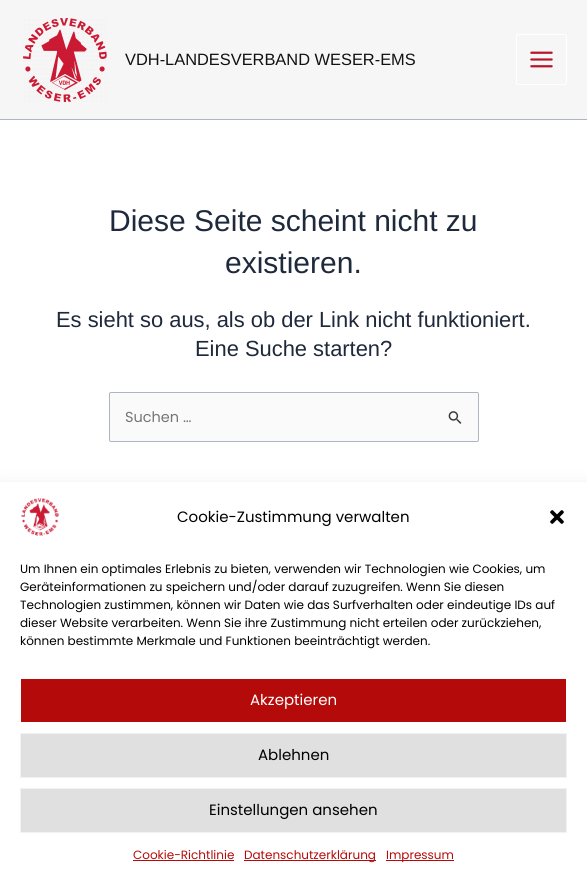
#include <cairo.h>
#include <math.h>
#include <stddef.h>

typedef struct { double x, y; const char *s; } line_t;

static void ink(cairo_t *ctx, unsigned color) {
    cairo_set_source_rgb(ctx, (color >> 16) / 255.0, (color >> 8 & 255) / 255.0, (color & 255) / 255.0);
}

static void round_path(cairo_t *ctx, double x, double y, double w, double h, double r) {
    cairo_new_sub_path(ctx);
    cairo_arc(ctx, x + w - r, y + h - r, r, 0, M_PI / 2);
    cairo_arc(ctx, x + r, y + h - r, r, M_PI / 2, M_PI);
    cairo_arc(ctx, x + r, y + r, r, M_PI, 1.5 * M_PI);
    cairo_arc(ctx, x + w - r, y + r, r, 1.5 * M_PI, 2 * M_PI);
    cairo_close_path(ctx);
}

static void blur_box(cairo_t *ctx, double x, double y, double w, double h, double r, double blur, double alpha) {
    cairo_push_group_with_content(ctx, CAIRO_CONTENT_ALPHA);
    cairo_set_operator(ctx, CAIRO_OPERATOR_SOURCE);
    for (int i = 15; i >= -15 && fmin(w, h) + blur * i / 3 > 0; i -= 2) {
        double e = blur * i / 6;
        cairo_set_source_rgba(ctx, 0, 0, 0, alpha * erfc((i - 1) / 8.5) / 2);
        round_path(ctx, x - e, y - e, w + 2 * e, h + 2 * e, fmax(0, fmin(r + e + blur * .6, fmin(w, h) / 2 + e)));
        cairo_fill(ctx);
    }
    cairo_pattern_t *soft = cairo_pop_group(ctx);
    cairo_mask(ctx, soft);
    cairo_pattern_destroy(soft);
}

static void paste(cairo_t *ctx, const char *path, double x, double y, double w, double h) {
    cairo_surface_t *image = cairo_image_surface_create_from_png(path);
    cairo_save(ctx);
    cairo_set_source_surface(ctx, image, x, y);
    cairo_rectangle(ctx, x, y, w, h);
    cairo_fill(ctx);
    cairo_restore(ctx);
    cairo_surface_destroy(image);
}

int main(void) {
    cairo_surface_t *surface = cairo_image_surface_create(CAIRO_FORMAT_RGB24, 587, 882);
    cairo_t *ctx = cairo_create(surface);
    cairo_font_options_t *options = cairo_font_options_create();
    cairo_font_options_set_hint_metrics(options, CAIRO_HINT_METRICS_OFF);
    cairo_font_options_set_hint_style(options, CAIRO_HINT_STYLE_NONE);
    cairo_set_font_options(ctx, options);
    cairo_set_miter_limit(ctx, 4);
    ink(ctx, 0xFFFFFF);
    cairo_paint(ctx);
    ink(ctx, 0xF7F6F6);
    cairo_rectangle(ctx, 0, 0, 587, 119);
    cairo_fill(ctx);
    ink(ctx, 0xADB6BE);
    cairo_rectangle(ctx, 0, 119, 587, 1);
    cairo_fill(ctx);
    paste(ctx, "media/1.png", 23, 18, 84, 85);
    cairo_select_font_face(ctx, "Liberation Sans", CAIRO_FONT_SLANT_NORMAL, CAIRO_FONT_WEIGHT_NORMAL);
    cairo_set_font_size(ctx, 16.4);
    ink(ctx, 0x111111);
    cairo_move_to(ctx, 125, 65);
    cairo_show_text(ctx, "VDH-LANDESVERBAND WESER-EMS");
    round_path(ctx, 516.5, 34.5, 50, 50, 1.5);
    ink(ctx, 0xFFFFFF);
    cairo_set_line_width(ctx, 1);
    cairo_stroke(ctx);
    paste(ctx, "media/2.png", 530, 51, 23, 17);
    cairo_set_font_size(ctx, 30);
    ink(ctx, 0x1E293B);
    cairo_move_to(ctx, 109, 231);
    cairo_show_text(ctx, "Diese Seite scheint nicht zu");
    cairo_move_to(ctx, 225, 273);
    cairo_show_text(ctx, "existieren.");
    cairo_set_font_size(ctx, 21.9);
    cairo_move_to(ctx, 56, 327);
    cairo_show_text(ctx, "Es sieht so aus, als ob der Link nicht funktioniert.");
    cairo_move_to(ctx, 195, 356);
    cairo_show_text(ctx, "Eine Suche starten?");
    ink(ctx, 0xFAFAFA);
    round_path(ctx, 109.5, 392.5, 369, 49, 1.5);
    cairo_fill_preserve(ctx);
    ink(ctx, 0xADB6BE);
    cairo_stroke(ctx);
    cairo_select_font_face(ctx, "Poppins", CAIRO_FONT_SLANT_NORMAL, CAIRO_FONT_WEIGHT_NORMAL);
    cairo_set_font_size(ctx, 14.5);
    ink(ctx, 0x757575);
    cairo_move_to(ctx, 125, 422);
    cairo_show_text(ctx, "Suchen …");
    paste(ctx, "media/3.png", 448, 411, 14, 13);
    ink(ctx, 0x000000);
    blur_box(ctx, 0, 492, 587, 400, 0, 10, 0.19);
    ink(ctx, 0xFFFFFF);
    cairo_rectangle(ctx, 0, 482, 587, 400);
    cairo_fill(ctx);
    paste(ctx, "media/4.png", 21, 498, 38, 38);
    cairo_set_font_size(ctx, 15);
    ink(ctx, 0x000000);
    cairo_move_to(ctx, 177, 522);
    cairo_show_text(ctx, "Cookie-Zustimmung verwalten");
    paste(ctx, "media/5.png", 550, 510, 14, 14);
    cairo_set_font_size(ctx, 12);
    {
        static const line_t items[] = {
            {20, 573, "Um Ihnen ein optimales Erlebnis zu bieten, verwenden wir Technologien wie Cookies, um"},
            {20, 591, "Geräteinformationen zu speichern und/oder darauf zuzugreifen. Wenn Sie diesen"},
            {20, 609, "Technologien zustimmen, können wir Daten wie das Surfverhalten oder eindeutige IDs auf"},
            {20, 627, "dieser Website verarbeiten. Wenn Sie ihre Zustimmung nicht erteilen oder zurückziehen,"},
            {20, 645, "können bestimmte Merkmale und Funktionen beeinträchtigt werden."},
        };
        for (size_t i = 0; i < sizeof items / sizeof *items; i++) {
            cairo_move_to(ctx, items[i].x, items[i].y);
            cairo_show_text(ctx, items[i].s);
        }
    }
    ink(ctx, 0xB50A0A);
    cairo_rectangle(ctx, 21, 679, 545, 43);
    cairo_fill(ctx);
    cairo_set_font_size(ctx, 15);
    ink(ctx, 0xFFFFFF);
    cairo_move_to(ctx, 250, 705);
    cairo_show_text(ctx, "Akzeptieren");
    ink(ctx, 0xE0E0E0);
    cairo_rectangle(ctx, 20.5, 733.5, 546, 44);
    cairo_fill_preserve(ctx);
    ink(ctx, 0xF2F2F2);
    cairo_stroke(ctx);
    ink(ctx, 0x000000);
    cairo_move_to(ctx, 258, 760);
    cairo_show_text(ctx, "Ablehnen");
    ink(ctx, 0xE0E0E0);
    cairo_rectangle(ctx, 20.5, 788.5, 546, 44);
    cairo_fill_preserve(ctx);
    ink(ctx, 0xF2F2F2);
    cairo_stroke(ctx);
    ink(ctx, 0x000000);
    cairo_move_to(ctx, 209, 815);
    cairo_show_text(ctx, "Einstellungen ansehen");
    cairo_set_font_size(ctx, 12);
    ink(ctx, 0xB50A0A);
    cairo_move_to(ctx, 133, 859);
    cairo_show_text(ctx, "Cookie-Richtlinie");
    cairo_rectangle(ctx, 133, 860, 101, 1);
    cairo_fill(ctx);
    cairo_rectangle(ctx, 244, 860, 132, 1);
    cairo_fill(ctx);
    cairo_move_to(ctx, 244, 859);
    cairo_show_text(ctx, "Datenschutzerklärung");
    cairo_rectangle(ctx, 386, 860, 68, 1);
    cairo_fill(ctx);
    cairo_move_to(ctx, 386, 859);
    cairo_show_text(ctx, "Impressum");
    cairo_surface_write_to_png(surface, "image.png");
    cairo_font_options_destroy(options);
    cairo_destroy(ctx);
    cairo_surface_destroy(surface);
    return 0;
}
